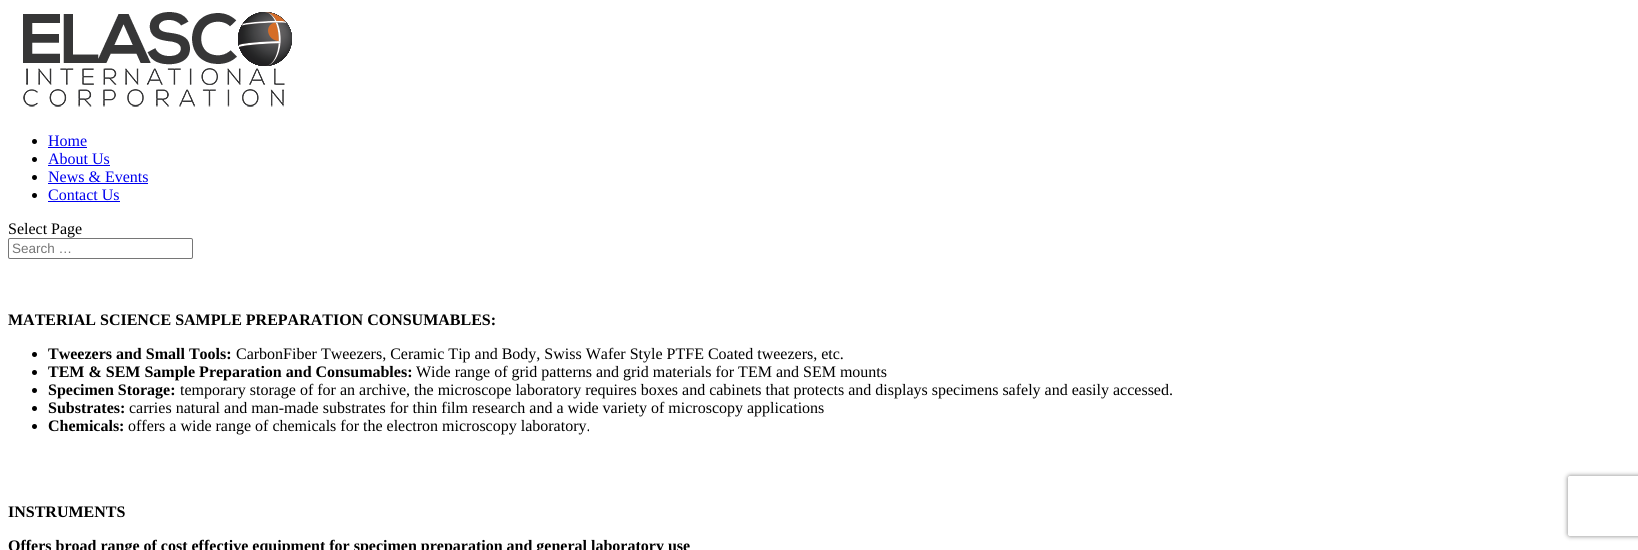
#include <cairo.h>
#include <math.h>
#include <stddef.h>


static void ink(cairo_t *ctx, unsigned color) {
    cairo_set_source_rgb(ctx, (color >> 16) / 255.0, (color >> 8 & 255) / 255.0, (color & 255) / 255.0);
}

static void round_path(cairo_t *ctx, double x, double y, double w, double h, double r) {
    cairo_new_sub_path(ctx);
    cairo_arc(ctx, x + w - r, y + h - r, r, 0, M_PI / 2);
    cairo_arc(ctx, x + r, y + h - r, r, M_PI / 2, M_PI);
    cairo_arc(ctx, x + r, y + r, r, M_PI, 1.5 * M_PI);
    cairo_arc(ctx, x + w - r, y + r, r, 1.5 * M_PI, 2 * M_PI);
    cairo_close_path(ctx);
}

static void blur_box(cairo_t *ctx, double x, double y, double w, double h, double r, double blur, double alpha) {
    cairo_push_group_with_content(ctx, CAIRO_CONTENT_ALPHA);
    cairo_set_operator(ctx, CAIRO_OPERATOR_SOURCE);
    for (int i = 15; i >= -15 && fmin(w, h) + blur * i / 3 > 0; i -= 2) {
        double e = blur * i / 6;
        cairo_set_source_rgba(ctx, 0, 0, 0, alpha * erfc((i - 1) / 8.5) / 2);
        round_path(ctx, x - e, y - e, w + 2 * e, h + 2 * e, fmax(0, fmin(r + e + blur * .6, fmin(w, h) / 2 + e)));
        cairo_fill(ctx);
    }
    cairo_pattern_t *soft = cairo_pop_group(ctx);
    cairo_mask(ctx, soft);
    cairo_pattern_destroy(soft);
}

static void paste(cairo_t *ctx, const char *path, double x, double y, double w, double h) {
    cairo_surface_t *image = cairo_image_surface_create_from_png(path);
    cairo_save(ctx);
    cairo_set_source_surface(ctx, image, x, y);
    cairo_rectangle(ctx, x, y, w, h);
    cairo_fill(ctx);
    cairo_restore(ctx);
    cairo_surface_destroy(image);
}

int main(void) {
    cairo_surface_t *surface = cairo_image_surface_create(CAIRO_FORMAT_RGB24, 1638, 550);
    cairo_t *ctx = cairo_create(surface);
    cairo_font_options_t *options = cairo_font_options_create();
    cairo_font_options_set_hint_metrics(options, CAIRO_HINT_METRICS_OFF);
    cairo_font_options_set_hint_style(options, CAIRO_HINT_STYLE_NONE);
    cairo_set_font_options(ctx, options);
    cairo_set_miter_limit(ctx, 4);
    ink(ctx, 0xFFFFFF);
    cairo_paint(ctx);
    paste(ctx, "media/1.png", 23, 12, 269, 95);
    ink(ctx, 0x000000);
    cairo_arc(ctx, 34.5, 141.5, 2.5, 0, 2 * M_PI);
    cairo_fill(ctx);
    cairo_select_font_face(ctx, "Liberation Serif", CAIRO_FONT_SLANT_NORMAL, CAIRO_FONT_WEIGHT_NORMAL);
    cairo_set_font_size(ctx, 16);
    ink(ctx, 0x0000EE);
    cairo_move_to(ctx, 48, 146);
    cairo_show_text(ctx, "Home");
    cairo_rectangle(ctx, 48, 147, 39, 1);
    cairo_fill(ctx);
    ink(ctx, 0x000000);
    cairo_arc(ctx, 34.5, 159.5, 2.5, 0, 2 * M_PI);
    cairo_fill(ctx);
    ink(ctx, 0x0000EE);
    cairo_move_to(ctx, 48, 164);
    cairo_show_text(ctx, "About Us");
    cairo_rectangle(ctx, 48, 165, 62, 1);
    cairo_fill(ctx);
    ink(ctx, 0x000000);
    cairo_arc(ctx, 34.5, 177.5, 2.5, 0, 2 * M_PI);
    cairo_fill(ctx);
    ink(ctx, 0x0000EE);
    cairo_move_to(ctx, 48, 182);
    cairo_show_text(ctx, "News & Events");
    cairo_rectangle(ctx, 48, 183, 100, 1);
    cairo_fill(ctx);
    ink(ctx, 0x000000);
    cairo_arc(ctx, 34.5, 195.5, 2.5, 0, 2 * M_PI);
    cairo_fill(ctx);
    ink(ctx, 0x0000EE);
    cairo_move_to(ctx, 48, 200);
    cairo_show_text(ctx, "Contact Us");
    cairo_rectangle(ctx, 48, 201, 72, 1);
    cairo_fill(ctx);
    ink(ctx, 0x000000);
    cairo_move_to(ctx, 8, 234);
    cairo_show_text(ctx, "Select Page");
    round_path(ctx, 8.5, 238.5, 184, 20, 1.5);
    ink(ctx, 0x767676);
    cairo_set_line_width(ctx, 1);
    cairo_stroke(ctx);
    cairo_select_font_face(ctx, "Liberation Sans", CAIRO_FONT_SLANT_NORMAL, CAIRO_FONT_WEIGHT_NORMAL);
    cairo_set_font_size(ctx, 13.5);
    ink(ctx, 0x757575);
    cairo_move_to(ctx, 12, 253);
    cairo_show_text(ctx, "Search …");
    cairo_select_font_face(ctx, "Liberation Serif", CAIRO_FONT_SLANT_NORMAL, CAIRO_FONT_WEIGHT_BOLD);
    cairo_set_font_size(ctx, 16);
    ink(ctx, 0x000000);
    cairo_move_to(ctx, 8, 325);
    cairo_show_text(ctx, "MATERIAL SCIENCE SAMPLE PREPARATION CONSUMABLES:");
    cairo_new_path(ctx);
    cairo_arc(ctx, 34.5, 354.5, 2.5, 0, 2 * M_PI);
    cairo_fill(ctx);
    cairo_move_to(ctx, 48, 359);
    cairo_show_text(ctx, "Tweezers and Small Tools:");
    cairo_select_font_face(ctx, "Liberation Serif", CAIRO_FONT_SLANT_NORMAL, CAIRO_FONT_WEIGHT_NORMAL);
    cairo_move_to(ctx, 236, 359);
    cairo_show_text(ctx, "CarbonFiber Tweezers, Ceramic Tip and Body, Swiss Wafer Style PTFE Coated tweezers, etc.");
    cairo_new_path(ctx);
    cairo_arc(ctx, 34.5, 372.5, 2.5, 0, 2 * M_PI);
    cairo_fill(ctx);
    cairo_select_font_face(ctx, "Liberation Serif", CAIRO_FONT_SLANT_NORMAL, CAIRO_FONT_WEIGHT_BOLD);
    cairo_move_to(ctx, 48, 377);
    cairo_show_text(ctx, "TEM & SEM Sample Preparation and Consumables:");
    cairo_select_font_face(ctx, "Liberation Serif", CAIRO_FONT_SLANT_NORMAL, CAIRO_FONT_WEIGHT_NORMAL);
    cairo_move_to(ctx, 416, 377);
    cairo_show_text(ctx, "Wide range of grid patterns and grid materials for TEM and SEM mounts");
    cairo_new_path(ctx);
    cairo_arc(ctx, 34.5, 390.5, 2.5, 0, 2 * M_PI);
    cairo_fill(ctx);
    cairo_select_font_face(ctx, "Liberation Serif", CAIRO_FONT_SLANT_NORMAL, CAIRO_FONT_WEIGHT_BOLD);
    cairo_move_to(ctx, 48, 395);
    cairo_show_text(ctx, "Specimen Storage:");
    cairo_select_font_face(ctx, "Liberation Serif", CAIRO_FONT_SLANT_NORMAL, CAIRO_FONT_WEIGHT_NORMAL);
    cairo_move_to(ctx, 180, 395);
    cairo_show_text(ctx, "temporary storage of for an archive, the microscope laboratory requires boxes and cabinets that protects and displays specimens safely and easily accessed.");
    cairo_new_path(ctx);
    cairo_arc(ctx, 34.5, 408.5, 2.5, 0, 2 * M_PI);
    cairo_fill(ctx);
    cairo_select_font_face(ctx, "Liberation Serif", CAIRO_FONT_SLANT_NORMAL, CAIRO_FONT_WEIGHT_BOLD);
    cairo_move_to(ctx, 48, 413);
    cairo_show_text(ctx, "Substrates:");
    cairo_select_font_face(ctx, "Liberation Serif", CAIRO_FONT_SLANT_NORMAL, CAIRO_FONT_WEIGHT_NORMAL);
    cairo_move_to(ctx, 129, 413);
    cairo_show_text(ctx, "carries natural and man-made substrates for thin film research and a wide variety of microscopy applications");
    cairo_new_path(ctx);
    cairo_arc(ctx, 34.5, 426.5, 2.5, 0, 2 * M_PI);
    cairo_fill(ctx);
    cairo_select_font_face(ctx, "Liberation Serif", CAIRO_FONT_SLANT_NORMAL, CAIRO_FONT_WEIGHT_BOLD);
    cairo_move_to(ctx, 48, 431);
    cairo_show_text(ctx, "Chemicals:");
    cairo_select_font_face(ctx, "Liberation Serif", CAIRO_FONT_SLANT_NORMAL, CAIRO_FONT_WEIGHT_NORMAL);
    cairo_move_to(ctx, 128, 431);
    cairo_show_text(ctx, "offers a wide range of chemicals for the electron microscopy laboratory.");
    cairo_select_font_face(ctx, "Liberation Serif", CAIRO_FONT_SLANT_NORMAL, CAIRO_FONT_WEIGHT_BOLD);
    cairo_move_to(ctx, 8, 517);
    cairo_show_text(ctx, "INSTRUMENTS");
    cairo_move_to(ctx, 8, 551);
    cairo_show_text(ctx, "Offers broad range of cost effective equipment for specimen preparation and general laboratory use");
    cairo_save(ctx);
    cairo_set_fill_rule(ctx, CAIRO_FILL_RULE_EVEN_ODD);
    cairo_new_path(ctx);
    cairo_move_to(ctx, 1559, 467);
    cairo_line_to(ctx, 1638, 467);
    cairo_line_to(ctx, 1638, 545);
    cairo_line_to(ctx, 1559, 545);
    cairo_close_path(ctx);
    cairo_move_to(ctx, 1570, 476);
    cairo_line_to(ctx, 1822, 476);
    cairo_curve_to(ctx, 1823, 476, 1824, 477, 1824, 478);
    cairo_line_to(ctx, 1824, 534);
    cairo_curve_to(ctx, 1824, 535, 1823, 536, 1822, 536);
    cairo_line_to(ctx, 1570, 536);
    cairo_curve_to(ctx, 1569, 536, 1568, 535, 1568, 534);
    cairo_line_to(ctx, 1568, 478);
    cairo_curve_to(ctx, 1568, 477, 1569, 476, 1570, 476);
    cairo_close_path(ctx);
    cairo_clip(ctx);
    ink(ctx, 0x808080);
    blur_box(ctx, 1568, 476, 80, 60, 2, 2.5, 1);
    cairo_restore(ctx);
    cairo_surface_write_to_png(surface, "image.png");
    cairo_font_options_destroy(options);
    cairo_destroy(ctx);
    cairo_surface_destroy(surface);
    return 0;
}
